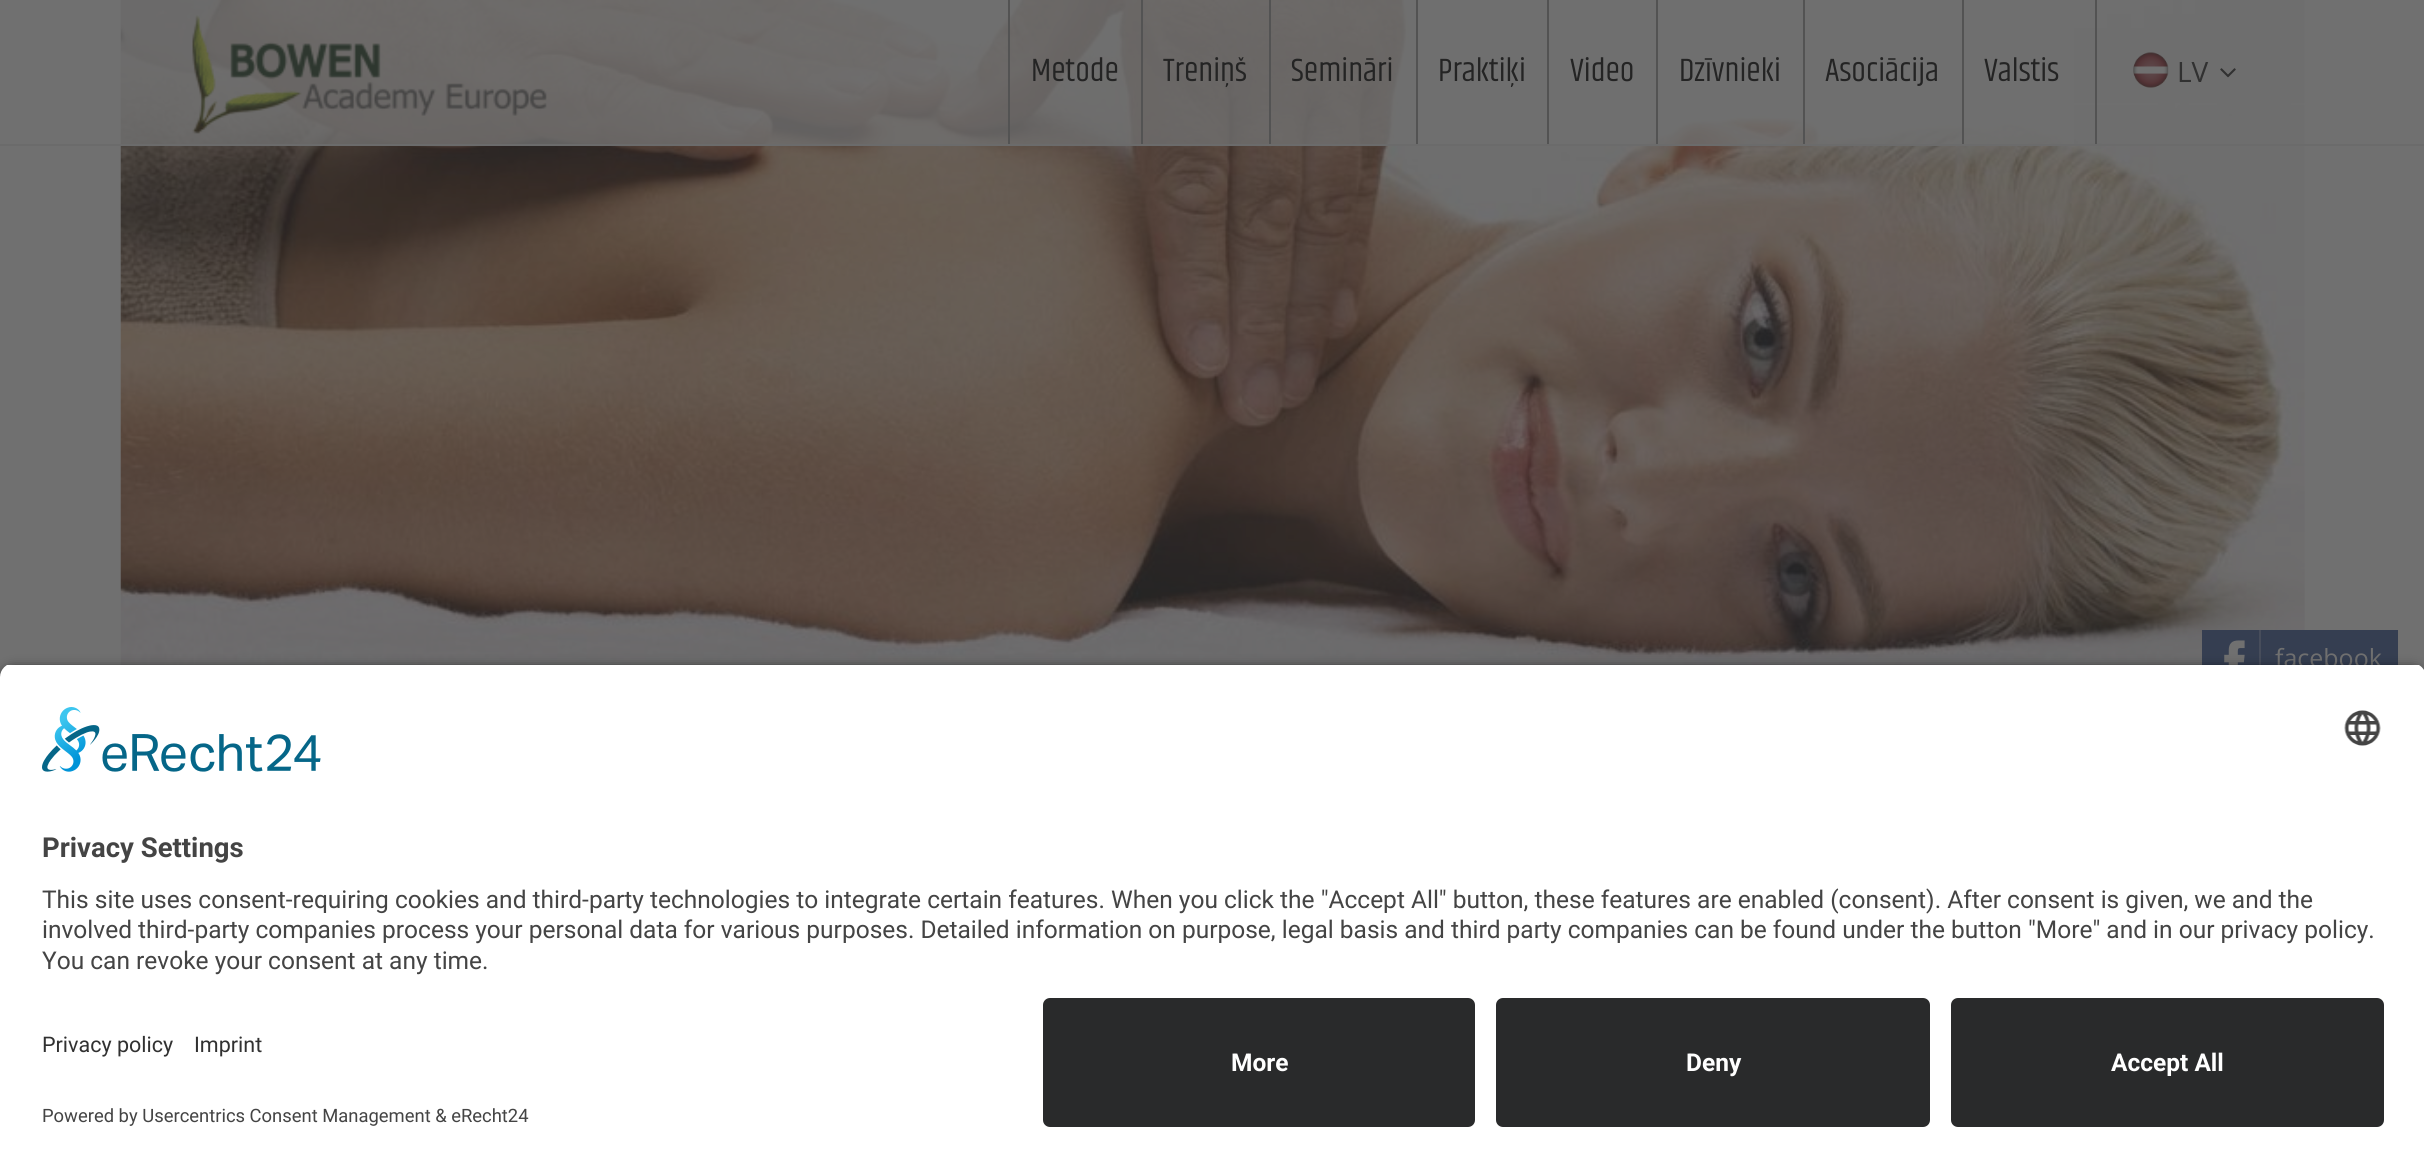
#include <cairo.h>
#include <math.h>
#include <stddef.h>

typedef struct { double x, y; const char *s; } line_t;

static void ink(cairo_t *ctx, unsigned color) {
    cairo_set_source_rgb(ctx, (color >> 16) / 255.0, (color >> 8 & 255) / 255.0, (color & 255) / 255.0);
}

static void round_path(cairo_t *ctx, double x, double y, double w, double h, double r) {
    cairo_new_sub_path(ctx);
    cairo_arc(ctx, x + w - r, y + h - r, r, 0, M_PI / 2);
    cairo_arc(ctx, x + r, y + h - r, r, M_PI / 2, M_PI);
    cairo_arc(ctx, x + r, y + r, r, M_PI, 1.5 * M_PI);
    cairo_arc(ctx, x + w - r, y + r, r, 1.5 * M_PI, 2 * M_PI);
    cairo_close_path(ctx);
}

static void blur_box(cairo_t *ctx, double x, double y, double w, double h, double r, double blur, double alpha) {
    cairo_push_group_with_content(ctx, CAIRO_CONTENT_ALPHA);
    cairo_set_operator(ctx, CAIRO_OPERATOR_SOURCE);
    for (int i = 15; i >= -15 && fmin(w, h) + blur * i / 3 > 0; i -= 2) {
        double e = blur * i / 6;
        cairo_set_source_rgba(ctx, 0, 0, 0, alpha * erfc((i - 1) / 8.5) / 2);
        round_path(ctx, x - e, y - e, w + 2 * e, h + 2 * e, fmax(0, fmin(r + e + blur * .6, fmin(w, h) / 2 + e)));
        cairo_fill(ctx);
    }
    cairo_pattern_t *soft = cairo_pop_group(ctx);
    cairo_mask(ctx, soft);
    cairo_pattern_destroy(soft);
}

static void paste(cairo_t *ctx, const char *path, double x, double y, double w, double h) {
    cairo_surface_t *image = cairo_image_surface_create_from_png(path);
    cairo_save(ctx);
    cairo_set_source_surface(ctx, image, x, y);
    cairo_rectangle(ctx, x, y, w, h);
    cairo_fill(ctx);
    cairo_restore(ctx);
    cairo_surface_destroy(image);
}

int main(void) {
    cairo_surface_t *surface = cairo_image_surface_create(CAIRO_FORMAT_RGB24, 2424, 1168);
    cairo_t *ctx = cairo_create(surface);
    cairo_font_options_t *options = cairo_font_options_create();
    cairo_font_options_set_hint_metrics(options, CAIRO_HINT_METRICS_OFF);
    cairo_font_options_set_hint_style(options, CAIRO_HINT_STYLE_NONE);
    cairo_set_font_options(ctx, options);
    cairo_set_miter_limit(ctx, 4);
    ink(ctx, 0x707070);
    cairo_paint(ctx);
    paste(ctx, "media/4.png", 120, 0, 2185, 665);
    cairo_set_source_rgba(ctx, 0.439, 0.439, 0.439, 0.8);
    cairo_rectangle(ctx, 120, 0, 1954, 144);
    cairo_fill(ctx);
    ink(ctx, 0x6B6B6B);
    cairo_rectangle(ctx, 0, 144, 2424, 2);
    cairo_fill(ctx);
    paste(ctx, "media/1.png", 192, 15, 355, 119);
    ink(ctx, 0x535353);
    cairo_rectangle(ctx, 1008, 0, 2, 144);
    cairo_fill(ctx);
    cairo_select_font_face(ctx, "Khand", CAIRO_FONT_SLANT_NORMAL, CAIRO_FONT_WEIGHT_NORMAL);
    cairo_set_font_size(ctx, 33);
    ink(ctx, 0x242424);
    cairo_move_to(ctx, 1031, 81);
    cairo_show_text(ctx, "Metode");
    ink(ctx, 0x535353);
    cairo_rectangle(ctx, 1141, 0, 2, 144);
    cairo_fill(ctx);
    ink(ctx, 0x242424);
    cairo_move_to(ctx, 1163, 81);
    cairo_show_text(ctx, "Treniņš");
    ink(ctx, 0x535353);
    cairo_rectangle(ctx, 1269, 0, 2, 144);
    cairo_fill(ctx);
    ink(ctx, 0x242424);
    cairo_move_to(ctx, 1291, 81);
    cairo_show_text(ctx, "Semināri");
    ink(ctx, 0x535353);
    cairo_rectangle(ctx, 1416, 0, 2, 144);
    cairo_fill(ctx);
    ink(ctx, 0x242424);
    cairo_move_to(ctx, 1438, 81);
    cairo_show_text(ctx, "Praktiķi");
    ink(ctx, 0x535353);
    cairo_rectangle(ctx, 1547, 0, 2, 144);
    cairo_fill(ctx);
    ink(ctx, 0x242424);
    cairo_move_to(ctx, 1570, 81);
    cairo_show_text(ctx, "Video");
    ink(ctx, 0x535353);
    cairo_rectangle(ctx, 1656, 0, 2, 144);
    cairo_fill(ctx);
    ink(ctx, 0x242424);
    cairo_move_to(ctx, 1679, 81);
    cairo_show_text(ctx, "Dzīvnieki");
    ink(ctx, 0x535353);
    cairo_rectangle(ctx, 1803, 0, 2, 144);
    cairo_fill(ctx);
    ink(ctx, 0x242424);
    cairo_move_to(ctx, 1825, 81);
    cairo_show_text(ctx, "Asociācija");
    ink(ctx, 0x535353);
    cairo_rectangle(ctx, 2095, 0, 2, 144);
    cairo_fill(ctx);
    cairo_rectangle(ctx, 1962, 0, 2, 144);
    cairo_fill(ctx);
    ink(ctx, 0x242424);
    cairo_move_to(ctx, 1984, 81);
    cairo_show_text(ctx, "Valstis");
    paste(ctx, "media/2.png", 2133, 52, 36, 36);
    cairo_select_font_face(ctx, "Open Sans", CAIRO_FONT_SLANT_NORMAL, CAIRO_FONT_WEIGHT_NORMAL);
    cairo_set_font_size(ctx, 28);
    ink(ctx, 0x313131);
    cairo_move_to(ctx, 2177, 82);
    cairo_show_text(ctx, "LV");
    paste(ctx, "media/3.png", 2220, 68, 16, 10);
    ink(ctx, 0x353E51);
    cairo_rectangle(ctx, 2202, 630, 196, 35);
    cairo_fill(ctx);
    paste(ctx, "media/5.png", 2224, 640, 21, 25);
    ink(ctx, 0x474D5B);
    cairo_rectangle(ctx, 2259, 630, 2, 35);
    cairo_fill(ctx);
    cairo_set_font_size(ctx, 25);
    ink(ctx, 0x707070);
    cairo_move_to(ctx, 2275, 667);
    cairo_show_text(ctx, "facebook");
    ink(ctx, 0x000000);
    blur_box(ctx, 0, 669, 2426, 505, 14, 6, 0.8);
    cairo_save(ctx);
    cairo_new_path(ctx);
    cairo_move_to(ctx, 14, 663);
    cairo_line_to(ctx, 2412, 663);
    cairo_curve_to(ctx, 2419.5, 663, 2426, 669.5, 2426, 677);
    cairo_line_to(ctx, 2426, 984);
    cairo_line_to(ctx, 0, 984);
    cairo_line_to(ctx, 0, 677);
    cairo_curve_to(ctx, 0, 669.5, 6.5, 663, 14, 663);
    cairo_close_path(ctx);
    cairo_clip(ctx);
    ink(ctx, 0xFFFFFF);
    cairo_rectangle(ctx, 0, 665, 2424, 319);
    cairo_fill(ctx);
    cairo_restore(ctx);
    paste(ctx, "media/6.png", 42, 707, 279, 65);
    paste(ctx, "media/7.png", 2344, 710, 37, 36);
    cairo_select_font_face(ctx, "Roboto", CAIRO_FONT_SLANT_NORMAL, CAIRO_FONT_WEIGHT_BOLD);
    cairo_set_font_size(ctx, 27.5);
    ink(ctx, 0x444444);
    cairo_move_to(ctx, 42, 857);
    cairo_show_text(ctx, "Privacy Settings");
    cairo_select_font_face(ctx, "Roboto", CAIRO_FONT_SLANT_NORMAL, CAIRO_FONT_WEIGHT_NORMAL);
    cairo_set_font_size(ctx, 24.5);
    {
        static const line_t items[] = {
            {42, 908, "This site uses consent-requiring cookies and third-party technologies to integrate certain features. When you click the \"Accept All\" button, these features are enabled (consent). After consent is given, we and the"},
            {42, 938, "involved third-party companies process your personal data for various purposes. Detailed information on purpose, legal basis and third party companies can be found under the button \"More\" and in our privacy policy."},
            {42, 969, "You can revoke your consent at any time."},
        };
        for (size_t i = 0; i < sizeof items / sizeof *items; i++) {
            cairo_move_to(ctx, items[i].x, items[i].y);
            cairo_show_text(ctx, items[i].s);
        }
    }
    ink(ctx, 0xFFFFFF);
    cairo_rectangle(ctx, 0, 984, 2424, 184);
    cairo_fill(ctx);
    cairo_set_font_size(ctx, 21.5);
    ink(ctx, 0x313131);
    cairo_move_to(ctx, 42, 1052);
    cairo_show_text(ctx, "Privacy policy");
    cairo_move_to(ctx, 194, 1052);
    cairo_show_text(ctx, "Imprint");
    cairo_set_font_size(ctx, 18.4);
    ink(ctx, 0x444444);
    cairo_move_to(ctx, 42, 1122);
    cairo_show_text(ctx, "Powered by Usercentrics Consent Management & eRecht24");
    ink(ctx, 0x292A2B);
    round_path(ctx, 1043, 998, 432, 129, 7);
    cairo_fill(ctx);
    cairo_select_font_face(ctx, "Roboto", CAIRO_FONT_SLANT_NORMAL, CAIRO_FONT_WEIGHT_BOLD);
    cairo_set_font_size(ctx, 24.5);
    ink(ctx, 0xFFFFFF);
    cairo_move_to(ctx, 1231, 1071);
    cairo_show_text(ctx, "More");
    ink(ctx, 0x292A2B);
    round_path(ctx, 1496, 998, 434, 129, 7);
    cairo_fill(ctx);
    ink(ctx, 0xFFFFFF);
    cairo_move_to(ctx, 1686, 1071);
    cairo_show_text(ctx, "Deny");
    ink(ctx, 0x292A2B);
    round_path(ctx, 1951, 998, 433, 129, 7);
    cairo_fill(ctx);
    ink(ctx, 0xFFFFFF);
    cairo_move_to(ctx, 2111, 1071);
    cairo_show_text(ctx, "Accept All");
    cairo_surface_write_to_png(surface, "image.png");
    cairo_font_options_destroy(options);
    cairo_destroy(ctx);
    cairo_surface_destroy(surface);
    return 0;
}
